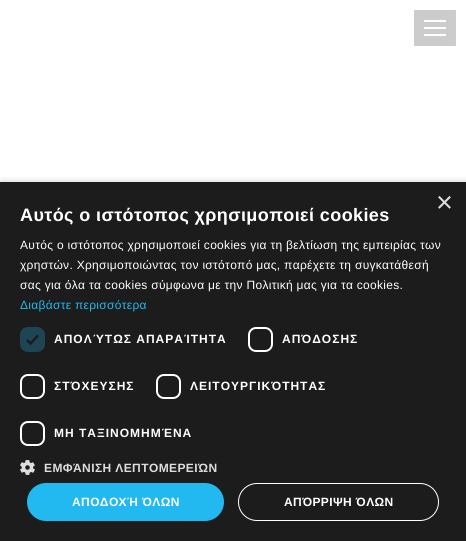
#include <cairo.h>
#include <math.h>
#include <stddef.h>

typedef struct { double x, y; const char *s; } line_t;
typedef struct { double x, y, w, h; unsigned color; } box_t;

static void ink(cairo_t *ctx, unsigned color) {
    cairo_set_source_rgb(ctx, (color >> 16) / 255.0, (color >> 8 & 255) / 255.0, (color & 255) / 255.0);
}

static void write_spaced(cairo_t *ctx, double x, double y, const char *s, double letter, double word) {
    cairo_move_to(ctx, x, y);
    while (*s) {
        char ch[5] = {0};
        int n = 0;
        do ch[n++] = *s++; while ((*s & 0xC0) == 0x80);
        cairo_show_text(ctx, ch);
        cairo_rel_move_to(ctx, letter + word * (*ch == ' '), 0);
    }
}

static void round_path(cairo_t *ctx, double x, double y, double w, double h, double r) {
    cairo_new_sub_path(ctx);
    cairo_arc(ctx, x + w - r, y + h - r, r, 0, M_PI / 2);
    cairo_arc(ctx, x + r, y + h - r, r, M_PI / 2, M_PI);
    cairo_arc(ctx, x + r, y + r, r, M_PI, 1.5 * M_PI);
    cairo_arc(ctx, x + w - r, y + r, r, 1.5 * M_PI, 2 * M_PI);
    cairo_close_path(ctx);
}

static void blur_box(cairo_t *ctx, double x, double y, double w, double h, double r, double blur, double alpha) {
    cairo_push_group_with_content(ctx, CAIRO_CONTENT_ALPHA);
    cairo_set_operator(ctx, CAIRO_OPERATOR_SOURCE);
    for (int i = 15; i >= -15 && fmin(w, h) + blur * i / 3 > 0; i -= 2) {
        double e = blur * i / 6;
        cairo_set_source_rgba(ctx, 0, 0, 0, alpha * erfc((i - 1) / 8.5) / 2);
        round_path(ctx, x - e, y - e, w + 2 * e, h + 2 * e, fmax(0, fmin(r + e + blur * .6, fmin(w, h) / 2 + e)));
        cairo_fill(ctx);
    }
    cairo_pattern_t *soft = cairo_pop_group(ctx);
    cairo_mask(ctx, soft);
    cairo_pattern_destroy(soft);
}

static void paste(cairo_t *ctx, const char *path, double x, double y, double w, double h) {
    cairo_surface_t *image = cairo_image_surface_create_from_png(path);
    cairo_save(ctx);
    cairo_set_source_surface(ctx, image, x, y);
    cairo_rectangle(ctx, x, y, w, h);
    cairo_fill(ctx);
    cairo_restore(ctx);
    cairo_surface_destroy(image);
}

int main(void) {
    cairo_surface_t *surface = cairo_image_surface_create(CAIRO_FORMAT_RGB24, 466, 541);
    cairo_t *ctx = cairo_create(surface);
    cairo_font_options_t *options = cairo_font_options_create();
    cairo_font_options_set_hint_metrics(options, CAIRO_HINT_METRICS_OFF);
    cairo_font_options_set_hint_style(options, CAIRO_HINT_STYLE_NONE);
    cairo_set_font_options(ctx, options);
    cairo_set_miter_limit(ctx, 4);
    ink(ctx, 0xFFFFFF);
    cairo_paint(ctx);
    ink(ctx, 0xCCCCCC);
    round_path(ctx, 414, 10, 42, 36, 1);
    cairo_fill(ctx);
    {
        static const box_t items[] = {
            {424, 20, 22, 2, 0xFFFFFF},
            {424, 27, 22, 2, 0xFFFFFF},
            {424, 34, 22, 2, 0xFFFFFF},
        };
        for (size_t i = 0; i < sizeof items / sizeof *items; i++) {
            ink(ctx, items[i].color);
            cairo_rectangle(ctx, items[i].x, items[i].y, items[i].w, items[i].h);
            cairo_fill(ctx);
        }
    }
    ink(ctx, 0x000000);
    blur_box(ctx, 1, 184, 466, 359, 0, 4, 0.35);
    ink(ctx, 0x1C1C1C);
    cairo_rectangle(ctx, 0, 182, 466, 359);
    cairo_fill(ctx);
    cairo_select_font_face(ctx, "Liberation Sans", CAIRO_FONT_SLANT_NORMAL, CAIRO_FONT_WEIGHT_NORMAL);
    cairo_set_font_size(ctx, 29);
    ink(ctx, 0xDDDDDD);
    cairo_move_to(ctx, 436, 212);
    cairo_show_text(ctx, "×");
    cairo_select_font_face(ctx, "Liberation Sans", CAIRO_FONT_SLANT_NORMAL, CAIRO_FONT_WEIGHT_BOLD);
    cairo_set_font_size(ctx, 18);
    ink(ctx, 0xFFFFFF);
    write_spaced(ctx, 20, 221, "Αυτός ο ιστότοπος χρησιμοποιεί cookies", 0.4, 0);
    cairo_select_font_face(ctx, "Liberation Sans", CAIRO_FONT_SLANT_NORMAL, CAIRO_FONT_WEIGHT_NORMAL);
    cairo_set_font_size(ctx, 12);
    {
        static const line_t items[] = {
            {20, 249, "Αυτός ο ιστότοπος χρησιμοποιεί cookies για τη βελτίωση της εμπειρίας των"},
            {20, 269, "χρηστών. Χρησιμοποιώντας τον ιστότοπό μας, παρέχετε τη συγκατάθεσή"},
            {20, 289, "σας για όλα τα cookies σύμφωνα με την Πολιτική μας για τα cookies."},
        };
        for (size_t i = 0; i < sizeof items / sizeof *items; i++) {
            write_spaced(ctx, items[i].x, items[i].y, items[i].s, 0.3, 0);
        }
    }
    ink(ctx, 0x22B8F0);
    write_spaced(ctx, 20, 309, "Διαβάστε περισσότερα", 0.3, 0);
    ink(ctx, 0x1E4553);
    round_path(ctx, 20, 327, 25, 25, 8);
    cairo_fill(ctx);
    cairo_new_path(ctx);
    cairo_move_to(ctx, 27, 340);
    cairo_line_to(ctx, 30.5, 343.5);
    cairo_line_to(ctx, 38, 335.5);
    ink(ctx, 0x1C1C1C);
    cairo_set_line_width(ctx, 2.6);
    cairo_stroke(ctx);
    cairo_select_font_face(ctx, "Liberation Sans", CAIRO_FONT_SLANT_NORMAL, CAIRO_FONT_WEIGHT_BOLD);
    ink(ctx, 0xFFFFFF);
    write_spaced(ctx, 54, 343, "ΑΠΟΛΎΤΩΣ ΑΠΑΡΑΊΤΗΤΑ", 1, 0);
    round_path(ctx, 249, 328, 23, 23, 7);
    cairo_set_line_width(ctx, 2);
    cairo_stroke(ctx);
    write_spaced(ctx, 282, 343, "ΑΠΌΔΟΣΗΣ", 1, 0);
    round_path(ctx, 21, 375, 23, 23, 7);
    cairo_stroke(ctx);
    write_spaced(ctx, 54, 390, "ΣΤΌΧΕΥΣΗΣ", 1, 0);
    round_path(ctx, 157, 375, 23, 23, 7);
    cairo_stroke(ctx);
    write_spaced(ctx, 190, 390, "ΛΕΙΤΟΥΡΓΙΚΌΤΗΤΑΣ", 1, 0);
    round_path(ctx, 21, 422, 23, 23, 7);
    cairo_stroke(ctx);
    write_spaced(ctx, 54, 437, "ΜΗ ΤΑΞΙΝΟΜΗΜΈΝΑ", 1, 0);
    paste(ctx, "media/1.png", 20, 460, 15, 15);
    ink(ctx, 0xDDDDDD);
    write_spaced(ctx, 44, 472, "ΕΜΦΆΝΙΣΗ ΛΕΠΤΟΜΕΡΕΙΏΝ", 0.4, 0);
    ink(ctx, 0x22B8F0);
    round_path(ctx, 27, 483, 197, 38, 19);
    cairo_fill(ctx);
    ink(ctx, 0xFFFFFF);
    write_spaced(ctx, 72, 506, "ΑΠΟΔΟΧΉ ΌΛΩΝ", 0.4, 0);
    round_path(ctx, 238.5, 483.5, 200, 37, 18.5);
    cairo_set_line_width(ctx, 1);
    cairo_stroke(ctx);
    write_spaced(ctx, 284, 506, "ΑΠΌΡΡΙΨΗ ΌΛΩΝ", 0.4, 0);
    cairo_surface_write_to_png(surface, "image.png");
    cairo_font_options_destroy(options);
    cairo_destroy(ctx);
    cairo_surface_destroy(surface);
    return 0;
}
